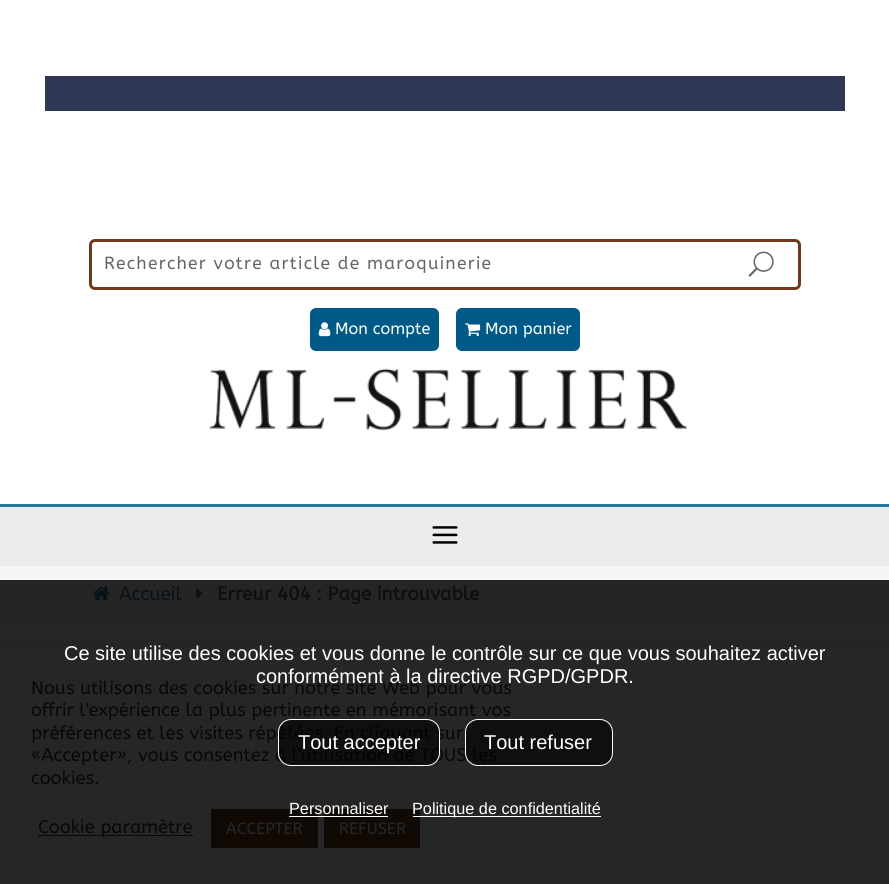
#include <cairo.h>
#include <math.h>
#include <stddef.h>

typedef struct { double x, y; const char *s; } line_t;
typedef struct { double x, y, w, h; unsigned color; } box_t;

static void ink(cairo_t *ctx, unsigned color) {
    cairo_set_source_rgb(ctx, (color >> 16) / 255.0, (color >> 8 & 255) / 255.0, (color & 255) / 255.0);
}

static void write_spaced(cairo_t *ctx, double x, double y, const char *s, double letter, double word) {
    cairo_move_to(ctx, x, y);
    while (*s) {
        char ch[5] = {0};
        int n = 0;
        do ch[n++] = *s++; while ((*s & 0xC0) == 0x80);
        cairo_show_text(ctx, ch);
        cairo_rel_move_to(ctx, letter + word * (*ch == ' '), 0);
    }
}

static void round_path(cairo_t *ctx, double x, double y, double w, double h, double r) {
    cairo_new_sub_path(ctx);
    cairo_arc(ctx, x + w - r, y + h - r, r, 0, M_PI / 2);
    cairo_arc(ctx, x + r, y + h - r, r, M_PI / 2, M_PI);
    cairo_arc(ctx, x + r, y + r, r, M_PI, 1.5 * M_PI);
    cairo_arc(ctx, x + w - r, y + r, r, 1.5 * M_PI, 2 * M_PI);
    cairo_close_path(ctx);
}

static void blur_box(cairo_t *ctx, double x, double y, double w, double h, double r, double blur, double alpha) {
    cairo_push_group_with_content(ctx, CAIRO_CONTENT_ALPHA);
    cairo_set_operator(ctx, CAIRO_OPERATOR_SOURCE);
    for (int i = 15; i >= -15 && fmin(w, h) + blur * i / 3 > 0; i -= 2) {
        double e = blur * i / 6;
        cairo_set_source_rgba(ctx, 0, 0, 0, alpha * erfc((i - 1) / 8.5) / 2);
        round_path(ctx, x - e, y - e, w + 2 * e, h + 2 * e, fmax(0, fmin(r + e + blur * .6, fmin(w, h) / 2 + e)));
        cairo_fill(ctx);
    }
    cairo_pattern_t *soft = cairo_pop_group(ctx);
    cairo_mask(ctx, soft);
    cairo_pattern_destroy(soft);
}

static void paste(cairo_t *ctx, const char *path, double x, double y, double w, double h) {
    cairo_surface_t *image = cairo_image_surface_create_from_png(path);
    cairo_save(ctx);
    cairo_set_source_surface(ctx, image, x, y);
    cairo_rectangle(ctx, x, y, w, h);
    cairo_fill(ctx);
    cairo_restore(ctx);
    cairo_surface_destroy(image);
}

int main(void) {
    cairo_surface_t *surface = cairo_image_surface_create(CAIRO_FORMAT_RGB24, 889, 884);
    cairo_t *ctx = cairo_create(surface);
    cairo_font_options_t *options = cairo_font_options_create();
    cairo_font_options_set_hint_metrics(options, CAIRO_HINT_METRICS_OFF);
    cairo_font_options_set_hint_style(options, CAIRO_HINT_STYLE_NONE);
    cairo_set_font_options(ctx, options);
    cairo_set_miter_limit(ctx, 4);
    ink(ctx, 0xFFFFFF);
    cairo_paint(ctx);
    ink(ctx, 0x262626);
    cairo_rectangle(ctx, 0, 625, 889, 21);
    cairo_fill(ctx);
    ink(ctx, 0x2F3855);
    cairo_rectangle(ctx, 45, 76, 800, 35);
    cairo_fill(ctx);
    round_path(ctx, 90.5, 240.5, 709, 48, 4.5);
    ink(ctx, 0x70391C);
    cairo_set_line_width(ctx, 3);
    cairo_stroke(ctx);
    cairo_select_font_face(ctx, "ABeeZee", CAIRO_FONT_SLANT_NORMAL, CAIRO_FONT_WEIGHT_NORMAL);
    cairo_set_font_size(ctx, 17.5);
    ink(ctx, 0x666666);
    write_spaced(ctx, 104, 269, "Rechercher votre article de maroquinerie", 1.25, 0);
    paste(ctx, "media/1.png", 748, 251, 26, 26);
    ink(ctx, 0x005A87);
    round_path(ctx, 310, 308, 129, 43, 6);
    cairo_fill(ctx);
    paste(ctx, "media/2.png", 318, 322, 13, 15);
    cairo_set_font_size(ctx, 16.25);
    ink(ctx, 0xFFFFFF);
    cairo_move_to(ctx, 335, 334);
    cairo_show_text(ctx, "Mon compte");
    ink(ctx, 0x005A87);
    round_path(ctx, 456, 308, 124, 43, 6);
    cairo_fill(ctx);
    paste(ctx, "media/3.png", 465, 323, 16, 14);
    ink(ctx, 0xFFFFFF);
    cairo_move_to(ctx, 485, 334);
    cairo_show_text(ctx, "Mon panier");
    paste(ctx, "media/4.png", 209, 368, 479, 63);
    ink(ctx, 0xECECEC);
    cairo_rectangle(ctx, 0, 507, 889, 59);
    cairo_fill(ctx);
    ink(ctx, 0x267997);
    cairo_rectangle(ctx, 0, 504, 889, 3);
    cairo_fill(ctx);
    paste(ctx, "media/5.png", 432, 526, 26, 18);
    {
        static const box_t items[] = {
            {0, 566, 889, 14, 0xF5F5F5},
            {0, 580, 889, 44, 0x252525},
            {0, 624, 889, 1, 0x242424},
        };
        for (size_t i = 0; i < sizeof items / sizeof *items; i++) {
            ink(ctx, items[i].color);
            cairo_rectangle(ctx, items[i].x, items[i].y, items[i].w, items[i].h);
            cairo_fill(ctx);
        }
    }
    paste(ctx, "media/6.png", 92, 586, 18, 14);
    cairo_set_font_size(ctx, 18.75);
    ink(ctx, 0x061217);
    cairo_move_to(ctx, 119, 600);
    cairo_show_text(ctx, "Accueil");
    paste(ctx, "media/7.png", 196, 588, 7, 11);
    cairo_select_font_face(ctx, "ABeeZee", CAIRO_FONT_SLANT_NORMAL, CAIRO_FONT_WEIGHT_BOLD);
    ink(ctx, 0x0F0F0F);
    cairo_move_to(ctx, 217, 600);
    cairo_show_text(ctx, "Erreur 404 : Page introuvable");
    ink(ctx, 0x1A1A1A);
    blur_box(ctx, 0, 645, 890, 239, 0, 6, 0.3);
    ink(ctx, 0x262626);
    cairo_rectangle(ctx, 0, 646, 889, 238);
    cairo_fill(ctx);
    cairo_select_font_face(ctx, "Liberation Sans", CAIRO_FONT_SLANT_NORMAL, CAIRO_FONT_WEIGHT_NORMAL);
    cairo_set_font_size(ctx, 20);
    ink(ctx, 0xFFFFFF);
    cairo_move_to(ctx, 64, 660);
    cairo_show_text(ctx, "Ce site utilise des cookies et vous donne le contrôle sur ce que vous souhaitez activer");
    cairo_move_to(ctx, 256, 683);
    cairo_show_text(ctx, "conformément à la directive RGPD/GPDR.");
    cairo_select_font_face(ctx, "ABeeZee", CAIRO_FONT_SLANT_NORMAL, CAIRO_FONT_WEIGHT_NORMAL);
    cairo_set_font_size(ctx, 18.3);
    ink(ctx, 0x080808);
    {
        static const line_t items[] = {
            {31, 716, "offrir l'expérience la plus pertinente en mémorisant vos"},
            {31, 739, "préférences et les visites répétées. En cliquant sur"},
            {31, 761, "«Accepter», vous consentez à l'utilisation de TOUS les"},
        };
        for (size_t i = 0; i < sizeof items / sizeof *items; i++) {
            cairo_move_to(ctx, items[i].x, items[i].y);
            cairo_show_text(ctx, items[i].s);
        }
    }
    cairo_set_source_rgba(ctx, 0, 0, 0, 0.6);
    round_path(ctx, 278.5, 719.5, 161, 46, 12.5);
    cairo_fill_preserve(ctx);
    ink(ctx, 0xFFFFFF);
    cairo_set_line_width(ctx, 1);
    cairo_stroke(ctx);
    cairo_select_font_face(ctx, "Liberation Sans", CAIRO_FONT_SLANT_NORMAL, CAIRO_FONT_WEIGHT_NORMAL);
    cairo_set_font_size(ctx, 20);
    cairo_move_to(ctx, 298, 749);
    cairo_show_text(ctx, "Tout accepter");
    cairo_set_source_rgba(ctx, 0, 0, 0, 0.6);
    round_path(ctx, 465.5, 719.5, 147, 46, 12.5);
    cairo_fill_preserve(ctx);
    ink(ctx, 0xFFFFFF);
    cairo_stroke(ctx);
    cairo_move_to(ctx, 484, 749);
    cairo_show_text(ctx, "Tout refuser");
    ink(ctx, 0x110904);
    cairo_rectangle(ctx, 211, 809, 107, 39);
    cairo_fill(ctx);
    cairo_rectangle(ctx, 324, 809, 96, 39);
    cairo_fill(ctx);
    cairo_set_font_size(ctx, 16.25);
    ink(ctx, 0xFFFFFF);
    cairo_move_to(ctx, 289, 814);
    cairo_show_text(ctx, "Personnaliser");
    cairo_rectangle(ctx, 289, 816, 99, 1);
    cairo_fill(ctx);
    cairo_rectangle(ctx, 413, 816, 188, 1);
    cairo_fill(ctx);
    cairo_move_to(ctx, 412, 814);
    cairo_show_text(ctx, "Politique de confidentialité");
    cairo_select_font_face(ctx, "ABeeZee", CAIRO_FONT_SLANT_NORMAL, CAIRO_FONT_WEIGHT_NORMAL);
    cairo_set_font_size(ctx, 18.3);
    ink(ctx, 0x080808);
    cairo_move_to(ctx, 31, 694);
    cairo_show_text(ctx, "Nous utilisons des cookies sur notre site Web pour vous");
    cairo_move_to(ctx, 31, 784);
    cairo_show_text(ctx, "cookies.");
    cairo_rectangle(ctx, 38, 835, 155, 1);
    cairo_fill(ctx);
    cairo_move_to(ctx, 38, 833);
    cairo_show_text(ctx, "Cookie paramètre");
    cairo_set_font_size(ctx, 16.25);
    ink(ctx, 0x262626);
    cairo_move_to(ctx, 226, 834);
    cairo_show_text(ctx, "ACCEPTER");
    cairo_move_to(ctx, 339, 834);
    cairo_show_text(ctx, "REFUSER");
    cairo_surface_write_to_png(surface, "image.png");
    cairo_font_options_destroy(options);
    cairo_destroy(ctx);
    cairo_surface_destroy(surface);
    return 0;
}
